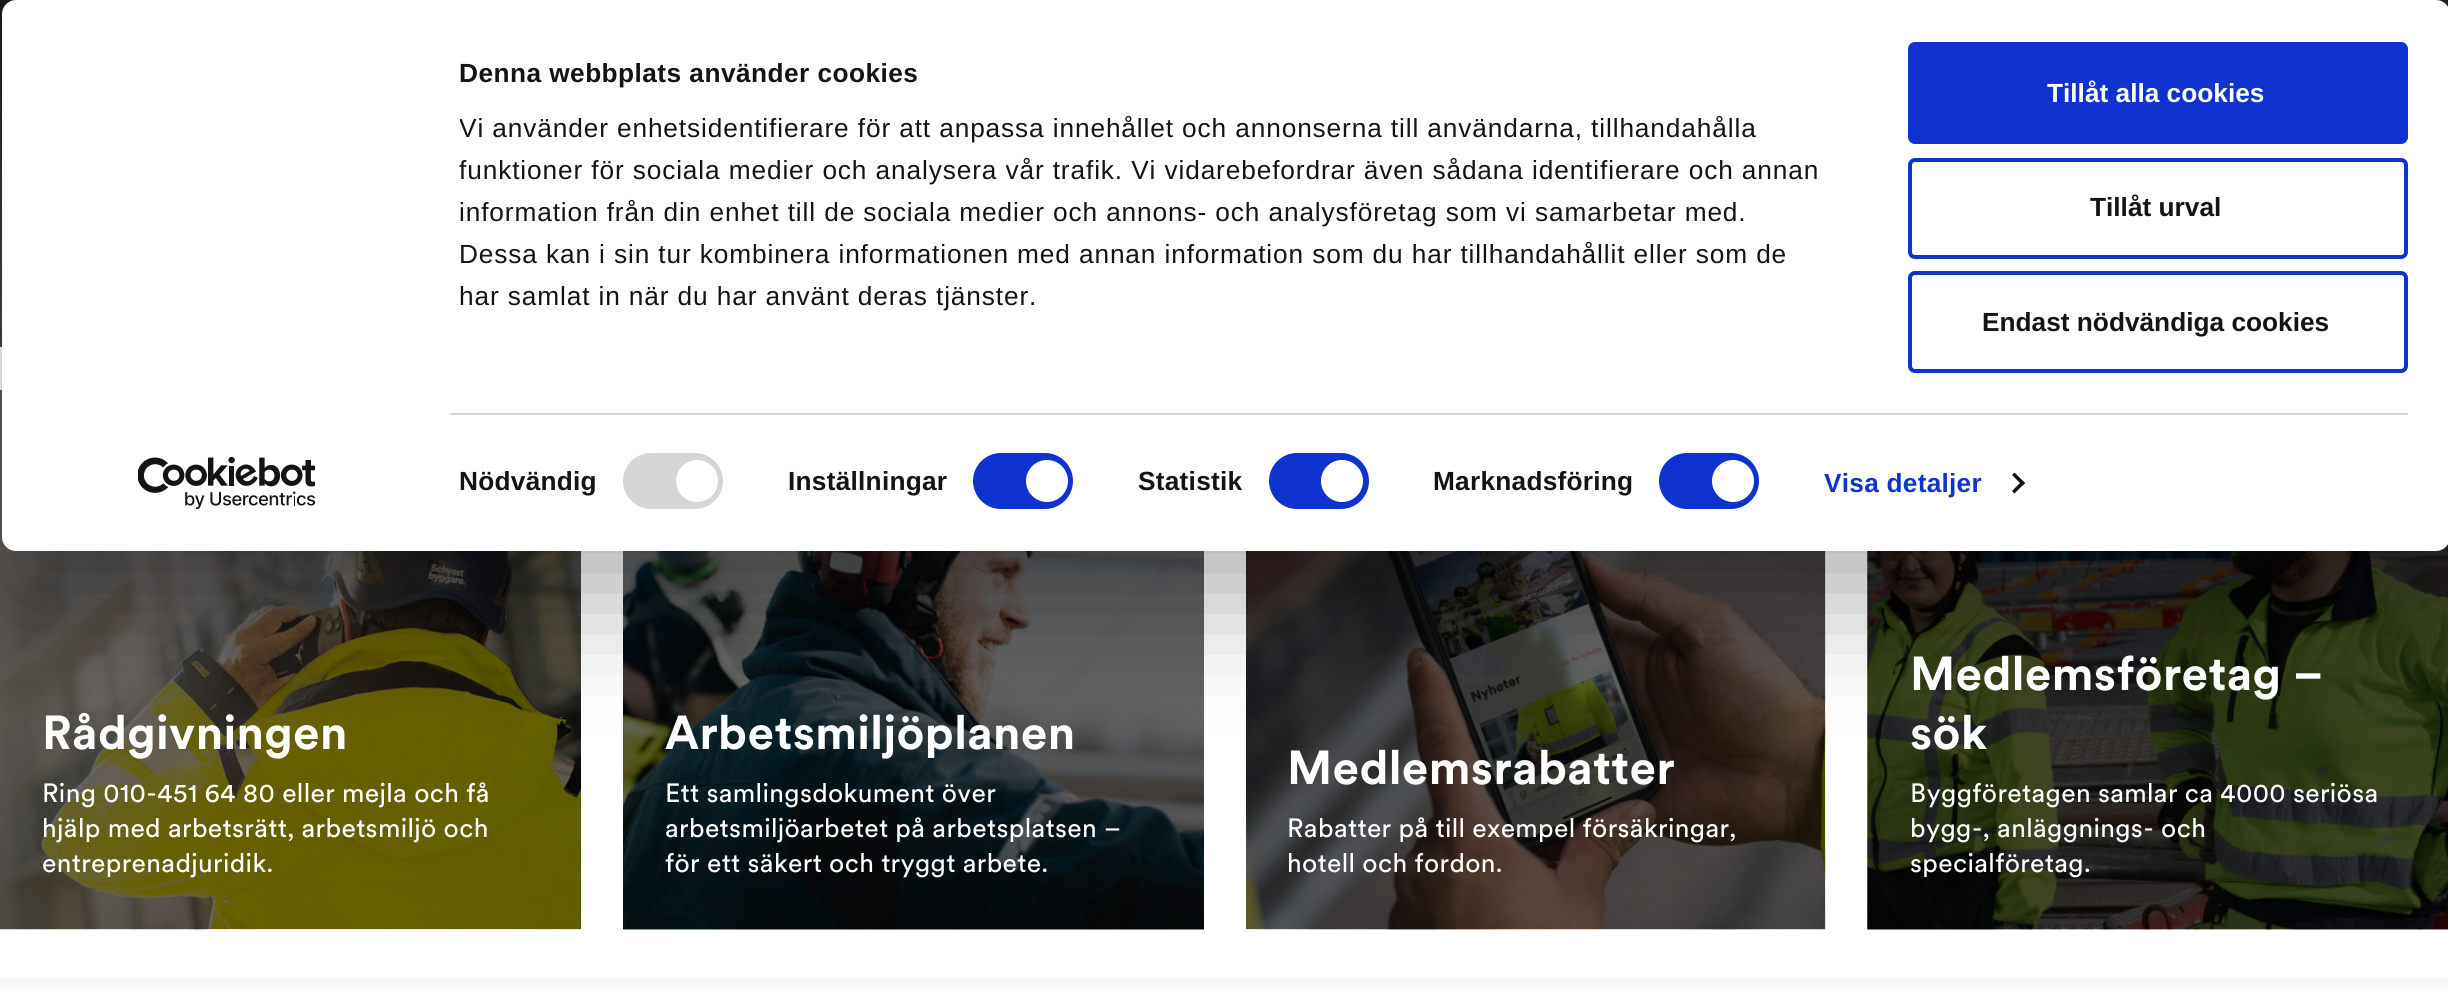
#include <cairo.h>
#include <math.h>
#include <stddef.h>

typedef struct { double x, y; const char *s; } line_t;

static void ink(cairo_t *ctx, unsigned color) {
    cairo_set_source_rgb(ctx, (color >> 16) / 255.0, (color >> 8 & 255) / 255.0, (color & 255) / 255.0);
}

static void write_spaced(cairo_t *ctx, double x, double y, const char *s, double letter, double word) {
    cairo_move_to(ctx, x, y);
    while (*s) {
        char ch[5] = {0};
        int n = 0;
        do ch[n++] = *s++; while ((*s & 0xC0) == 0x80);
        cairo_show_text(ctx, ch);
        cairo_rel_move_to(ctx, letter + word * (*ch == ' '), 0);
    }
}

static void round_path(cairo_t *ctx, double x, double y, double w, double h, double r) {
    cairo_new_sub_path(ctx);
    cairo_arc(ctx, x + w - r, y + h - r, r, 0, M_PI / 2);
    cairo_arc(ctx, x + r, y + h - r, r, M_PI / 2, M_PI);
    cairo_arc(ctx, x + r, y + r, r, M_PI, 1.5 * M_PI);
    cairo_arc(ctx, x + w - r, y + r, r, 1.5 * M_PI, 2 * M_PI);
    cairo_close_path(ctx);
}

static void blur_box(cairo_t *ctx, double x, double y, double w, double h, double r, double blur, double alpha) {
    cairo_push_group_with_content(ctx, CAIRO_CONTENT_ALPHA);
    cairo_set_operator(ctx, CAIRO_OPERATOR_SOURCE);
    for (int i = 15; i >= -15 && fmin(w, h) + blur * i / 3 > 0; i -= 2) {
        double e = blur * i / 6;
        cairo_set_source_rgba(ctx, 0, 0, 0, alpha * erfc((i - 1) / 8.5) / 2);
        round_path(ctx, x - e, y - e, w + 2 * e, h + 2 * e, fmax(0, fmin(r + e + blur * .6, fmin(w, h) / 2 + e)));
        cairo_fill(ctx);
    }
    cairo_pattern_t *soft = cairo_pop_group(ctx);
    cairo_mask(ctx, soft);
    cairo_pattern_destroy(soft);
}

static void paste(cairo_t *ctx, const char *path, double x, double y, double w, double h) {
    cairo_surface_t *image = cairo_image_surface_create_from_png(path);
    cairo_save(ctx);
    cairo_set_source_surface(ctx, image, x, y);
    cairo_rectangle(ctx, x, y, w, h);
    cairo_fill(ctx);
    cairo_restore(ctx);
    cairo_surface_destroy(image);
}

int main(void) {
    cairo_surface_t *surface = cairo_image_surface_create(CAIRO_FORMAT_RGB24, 2448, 991);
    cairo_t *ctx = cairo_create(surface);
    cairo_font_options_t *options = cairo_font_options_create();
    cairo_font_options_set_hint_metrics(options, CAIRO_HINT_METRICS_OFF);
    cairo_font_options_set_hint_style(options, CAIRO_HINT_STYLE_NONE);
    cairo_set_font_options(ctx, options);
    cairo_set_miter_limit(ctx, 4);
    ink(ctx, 0xFFFFFF);
    cairo_paint(ctx);
    ink(ctx, 0x666666);
    cairo_rectangle(ctx, 0, 390, 2, 1);
    cairo_fill(ctx);
    ink(ctx, 0x626364);
    cairo_rectangle(ctx, 0, 346, 2, 1);
    cairo_fill(ctx);
    paste(ctx, "media/2.png", 0, 0, 2448, 347);
    paste(ctx, "media/3.png", 0, 390, 581, 540);
    paste(ctx, "media/4.png", 623, 551, 581, 379);
    paste(ctx, "media/5.png", 1246, 551, 580, 379);
    paste(ctx, "media/6.png", 1867, 544, 581, 386);
    cairo_save(ctx);
    cairo_set_fill_rule(ctx, CAIRO_FILL_RULE_EVEN_ODD);
    cairo_new_path(ctx);
    cairo_move_to(ctx, 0, 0);
    cairo_line_to(ctx, 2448, 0);
    cairo_line_to(ctx, 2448, 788);
    cairo_line_to(ctx, 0, 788);
    cairo_close_path(ctx);
    cairo_move_to(ctx, 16, 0);
    cairo_line_to(ctx, 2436, 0);
    cairo_curve_to(ctx, 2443.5, 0, 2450, 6.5, 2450, 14);
    cairo_line_to(ctx, 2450, 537);
    cairo_curve_to(ctx, 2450, 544.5, 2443.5, 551, 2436, 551);
    cairo_line_to(ctx, 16, 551);
    cairo_curve_to(ctx, 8.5, 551, 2, 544.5, 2, 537);
    cairo_line_to(ctx, 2, 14);
    cairo_curve_to(ctx, 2, 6.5, 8.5, 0, 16, 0);
    cairo_close_path(ctx);
    cairo_clip(ctx);
    ink(ctx, 0x000000);
    blur_box(ctx, 2, 53, 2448, 551, 14, 61, 0.3);
    cairo_restore(ctx);
    ink(ctx, 0xFFFFFF);
    round_path(ctx, 2, 0, 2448, 551, 14);
    cairo_fill(ctx);
    cairo_select_font_face(ctx, "Liberation Sans", CAIRO_FONT_SLANT_NORMAL, CAIRO_FONT_WEIGHT_BOLD);
    cairo_set_font_size(ctx, 26.25);
    ink(ctx, 0x141414);
    write_spaced(ctx, 459, 82, "Denna webbplats använder cookies", 0.45, 0);
    cairo_save(ctx);
    cairo_rectangle(ctx, 460, 53, 1397, 309);
    cairo_clip(ctx);
    cairo_select_font_face(ctx, "Liberation Sans", CAIRO_FONT_SLANT_NORMAL, CAIRO_FONT_WEIGHT_NORMAL);
    write_spaced(ctx, 459, 137, "Vi använder enhetsidentifierare för att anpassa innehållet och annonserna till användarna, tillhandahålla", 0.88, 0);
    cairo_restore(ctx);
    cairo_select_font_face(ctx, "Liberation Sans", CAIRO_FONT_SLANT_NORMAL, CAIRO_FONT_WEIGHT_NORMAL);
    {
        static const line_t items[] = {
            {459, 179, "funktioner för sociala medier och analysera vår trafik. Vi vidarebefordrar även sådana identifierare och annan"},
            {459, 221, "information från din enhet till de sociala medier och annons- och analysföretag som vi samarbetar med."},
            {459, 263, "Dessa kan i sin tur kombinera informationen med annan information som du har tillhandahållit eller som de"},
            {459, 305, "har samlat in när du har använt deras tjänster."},
        };
        for (size_t i = 0; i < sizeof items / sizeof *items; i++) {
            write_spaced(ctx, items[i].x, items[i].y, items[i].s, 0.88, 0);
        }
    }
    ink(ctx, 0xD6D6D6);
    cairo_rectangle(ctx, 450, 413, 1958, 2);
    cairo_fill(ctx);
    cairo_select_font_face(ctx, "Liberation Sans", CAIRO_FONT_SLANT_NORMAL, CAIRO_FONT_WEIGHT_BOLD);
    ink(ctx, 0x141414);
    write_spaced(ctx, 459, 490, "Nödvändig", 0.25, 0);
    ink(ctx, 0xD6D6D6);
    round_path(ctx, 623, 453, 100, 56, 28);
    cairo_fill(ctx);
    ink(ctx, 0xFFFFFF);
    cairo_arc(ctx, 697, 481, 21, 0, 2 * M_PI);
    cairo_fill(ctx);
    ink(ctx, 0x141414);
    write_spaced(ctx, 788, 490, "Inställningar", 0.25, 0);
    ink(ctx, 0x1032CF);
    round_path(ctx, 973, 453, 100, 56, 28);
    cairo_fill(ctx);
    ink(ctx, 0xFFFFFF);
    cairo_arc(ctx, 1047, 481, 21, 0, 2 * M_PI);
    cairo_fill(ctx);
    ink(ctx, 0x141414);
    write_spaced(ctx, 1138, 490, "Statistik", 0.25, 0);
    ink(ctx, 0x1032CF);
    round_path(ctx, 1269, 453, 100, 56, 28);
    cairo_fill(ctx);
    ink(ctx, 0xFFFFFF);
    cairo_arc(ctx, 1342, 481, 21, 0, 2 * M_PI);
    cairo_fill(ctx);
    ink(ctx, 0x141414);
    write_spaced(ctx, 1433, 490, "Marknadsföring", 0.25, 0);
    ink(ctx, 0x1032CF);
    round_path(ctx, 1659, 453, 100, 56, 28);
    cairo_fill(ctx);
    ink(ctx, 0xFFFFFF);
    cairo_arc(ctx, 1733, 481, 21, 0, 2 * M_PI);
    cairo_fill(ctx);
    ink(ctx, 0x1032CF);
    write_spaced(ctx, 1824, 492, "Visa detaljer", 0.25, 0);
    ink(ctx, 0x141414);
    cairo_new_path(ctx);
    cairo_move_to(ctx, 2014.5, 472.5);
    cairo_line_to(ctx, 2025, 483);
    cairo_line_to(ctx, 2022.5, 485.5);
    cairo_line_to(ctx, 2012, 475);
    cairo_close_path(ctx);
    cairo_fill(ctx);
    cairo_new_path(ctx);
    cairo_move_to(ctx, 2022.5, 480.5);
    cairo_line_to(ctx, 2025, 483);
    cairo_line_to(ctx, 2014.5, 493.5);
    cairo_line_to(ctx, 2012, 491);
    cairo_close_path(ctx);
    cairo_fill(ctx);
    ink(ctx, 0x1032CF);
    round_path(ctx, 1910, 44, 496, 98, 5);
    cairo_fill_preserve(ctx);
    cairo_set_line_width(ctx, 4);
    cairo_stroke(ctx);
    ink(ctx, 0xFFFFFF);
    cairo_move_to(ctx, 2047, 102);
    cairo_show_text(ctx, "Tillåt alla cookies");
    round_path(ctx, 1910, 160, 496, 97, 5);
    ink(ctx, 0x1032CF);
    cairo_stroke(ctx);
    ink(ctx, 0x141414);
    cairo_move_to(ctx, 2090, 216);
    cairo_show_text(ctx, "Tillåt urval");
    round_path(ctx, 1910, 273, 496, 98, 5);
    ink(ctx, 0x1032CF);
    cairo_stroke(ctx);
    ink(ctx, 0x141414);
    cairo_move_to(ctx, 1982, 331);
    cairo_show_text(ctx, "Endast nödvändiga cookies");
    paste(ctx, "media/1.png", 138, 457, 177, 52);
    cairo_select_font_face(ctx, "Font", CAIRO_FONT_SLANT_NORMAL, CAIRO_FONT_WEIGHT_BOLD);
    cairo_set_font_size(ctx, 47.25);
    ink(ctx, 0xFFFFFF);
    write_spaced(ctx, 42, 749, "Rådgivningen", 0.35, 0);
    cairo_select_font_face(ctx, "Font", CAIRO_FONT_SLANT_NORMAL, CAIRO_FONT_WEIGHT_NORMAL);
    cairo_set_font_size(ctx, 26.25);
    {
        static const line_t items[] = {
            {42, 802, "Ring 010-451 64 80 eller mejla och få"},
            {42, 837, "hjälp med arbetsrätt, arbetsmiljö och"},
            {42, 872, "entreprenadjuridik."},
        };
        for (size_t i = 0; i < sizeof items / sizeof *items; i++) {
            write_spaced(ctx, items[i].x, items[i].y, items[i].s, 0.35, 0);
        }
    }
    cairo_select_font_face(ctx, "Font", CAIRO_FONT_SLANT_NORMAL, CAIRO_FONT_WEIGHT_BOLD);
    cairo_set_font_size(ctx, 47.25);
    write_spaced(ctx, 665, 749, "Arbetsmiljöplanen", 0.35, 0);
    cairo_select_font_face(ctx, "Font", CAIRO_FONT_SLANT_NORMAL, CAIRO_FONT_WEIGHT_NORMAL);
    cairo_set_font_size(ctx, 26.25);
    {
        static const line_t items[] = {
            {665, 802, "Ett samlingsdokument över"},
            {665, 837, "arbetsmiljöarbetet på arbetsplatsen –"},
            {665, 872, "för ett säkert och tryggt arbete."},
        };
        for (size_t i = 0; i < sizeof items / sizeof *items; i++) {
            write_spaced(ctx, items[i].x, items[i].y, items[i].s, 0.35, 0);
        }
    }
    cairo_select_font_face(ctx, "Font", CAIRO_FONT_SLANT_NORMAL, CAIRO_FONT_WEIGHT_BOLD);
    cairo_set_font_size(ctx, 47.25);
    write_spaced(ctx, 1287, 784, "Medlemsrabatter", 0.35, 0);
    cairo_select_font_face(ctx, "Font", CAIRO_FONT_SLANT_NORMAL, CAIRO_FONT_WEIGHT_NORMAL);
    cairo_set_font_size(ctx, 26.25);
    write_spaced(ctx, 1287, 837, "Rabatter på till exempel försäkringar,", 0.35, 0);
    write_spaced(ctx, 1287, 872, "hotell och fordon.", 0.35, 0);
    cairo_select_font_face(ctx, "Font", CAIRO_FONT_SLANT_NORMAL, CAIRO_FONT_WEIGHT_BOLD);
    cairo_set_font_size(ctx, 47.25);
    write_spaced(ctx, 1910, 690, "Medlemsföretag –", 0.35, 0);
    write_spaced(ctx, 1910, 749, "sök", 0.35, 0);
    cairo_select_font_face(ctx, "Font", CAIRO_FONT_SLANT_NORMAL, CAIRO_FONT_WEIGHT_NORMAL);
    cairo_set_font_size(ctx, 26.25);
    {
        static const line_t items[] = {
            {1910, 802, "Byggföretagen samlar ca 4000 seriösa"},
            {1910, 837, "bygg-, anläggnings- och"},
            {1910, 872, "specialföretag."},
        };
        for (size_t i = 0; i < sizeof items / sizeof *items; i++) {
            write_spaced(ctx, items[i].x, items[i].y, items[i].s, 0.35, 0);
        }
    }
    ink(ctx, 0xF6F8F9);
    cairo_rectangle(ctx, 0, 978, 2448, 13);
    cairo_fill(ctx);
    cairo_surface_write_to_png(surface, "image.png");
    cairo_font_options_destroy(options);
    cairo_destroy(ctx);
    cairo_surface_destroy(surface);
    return 0;
}
